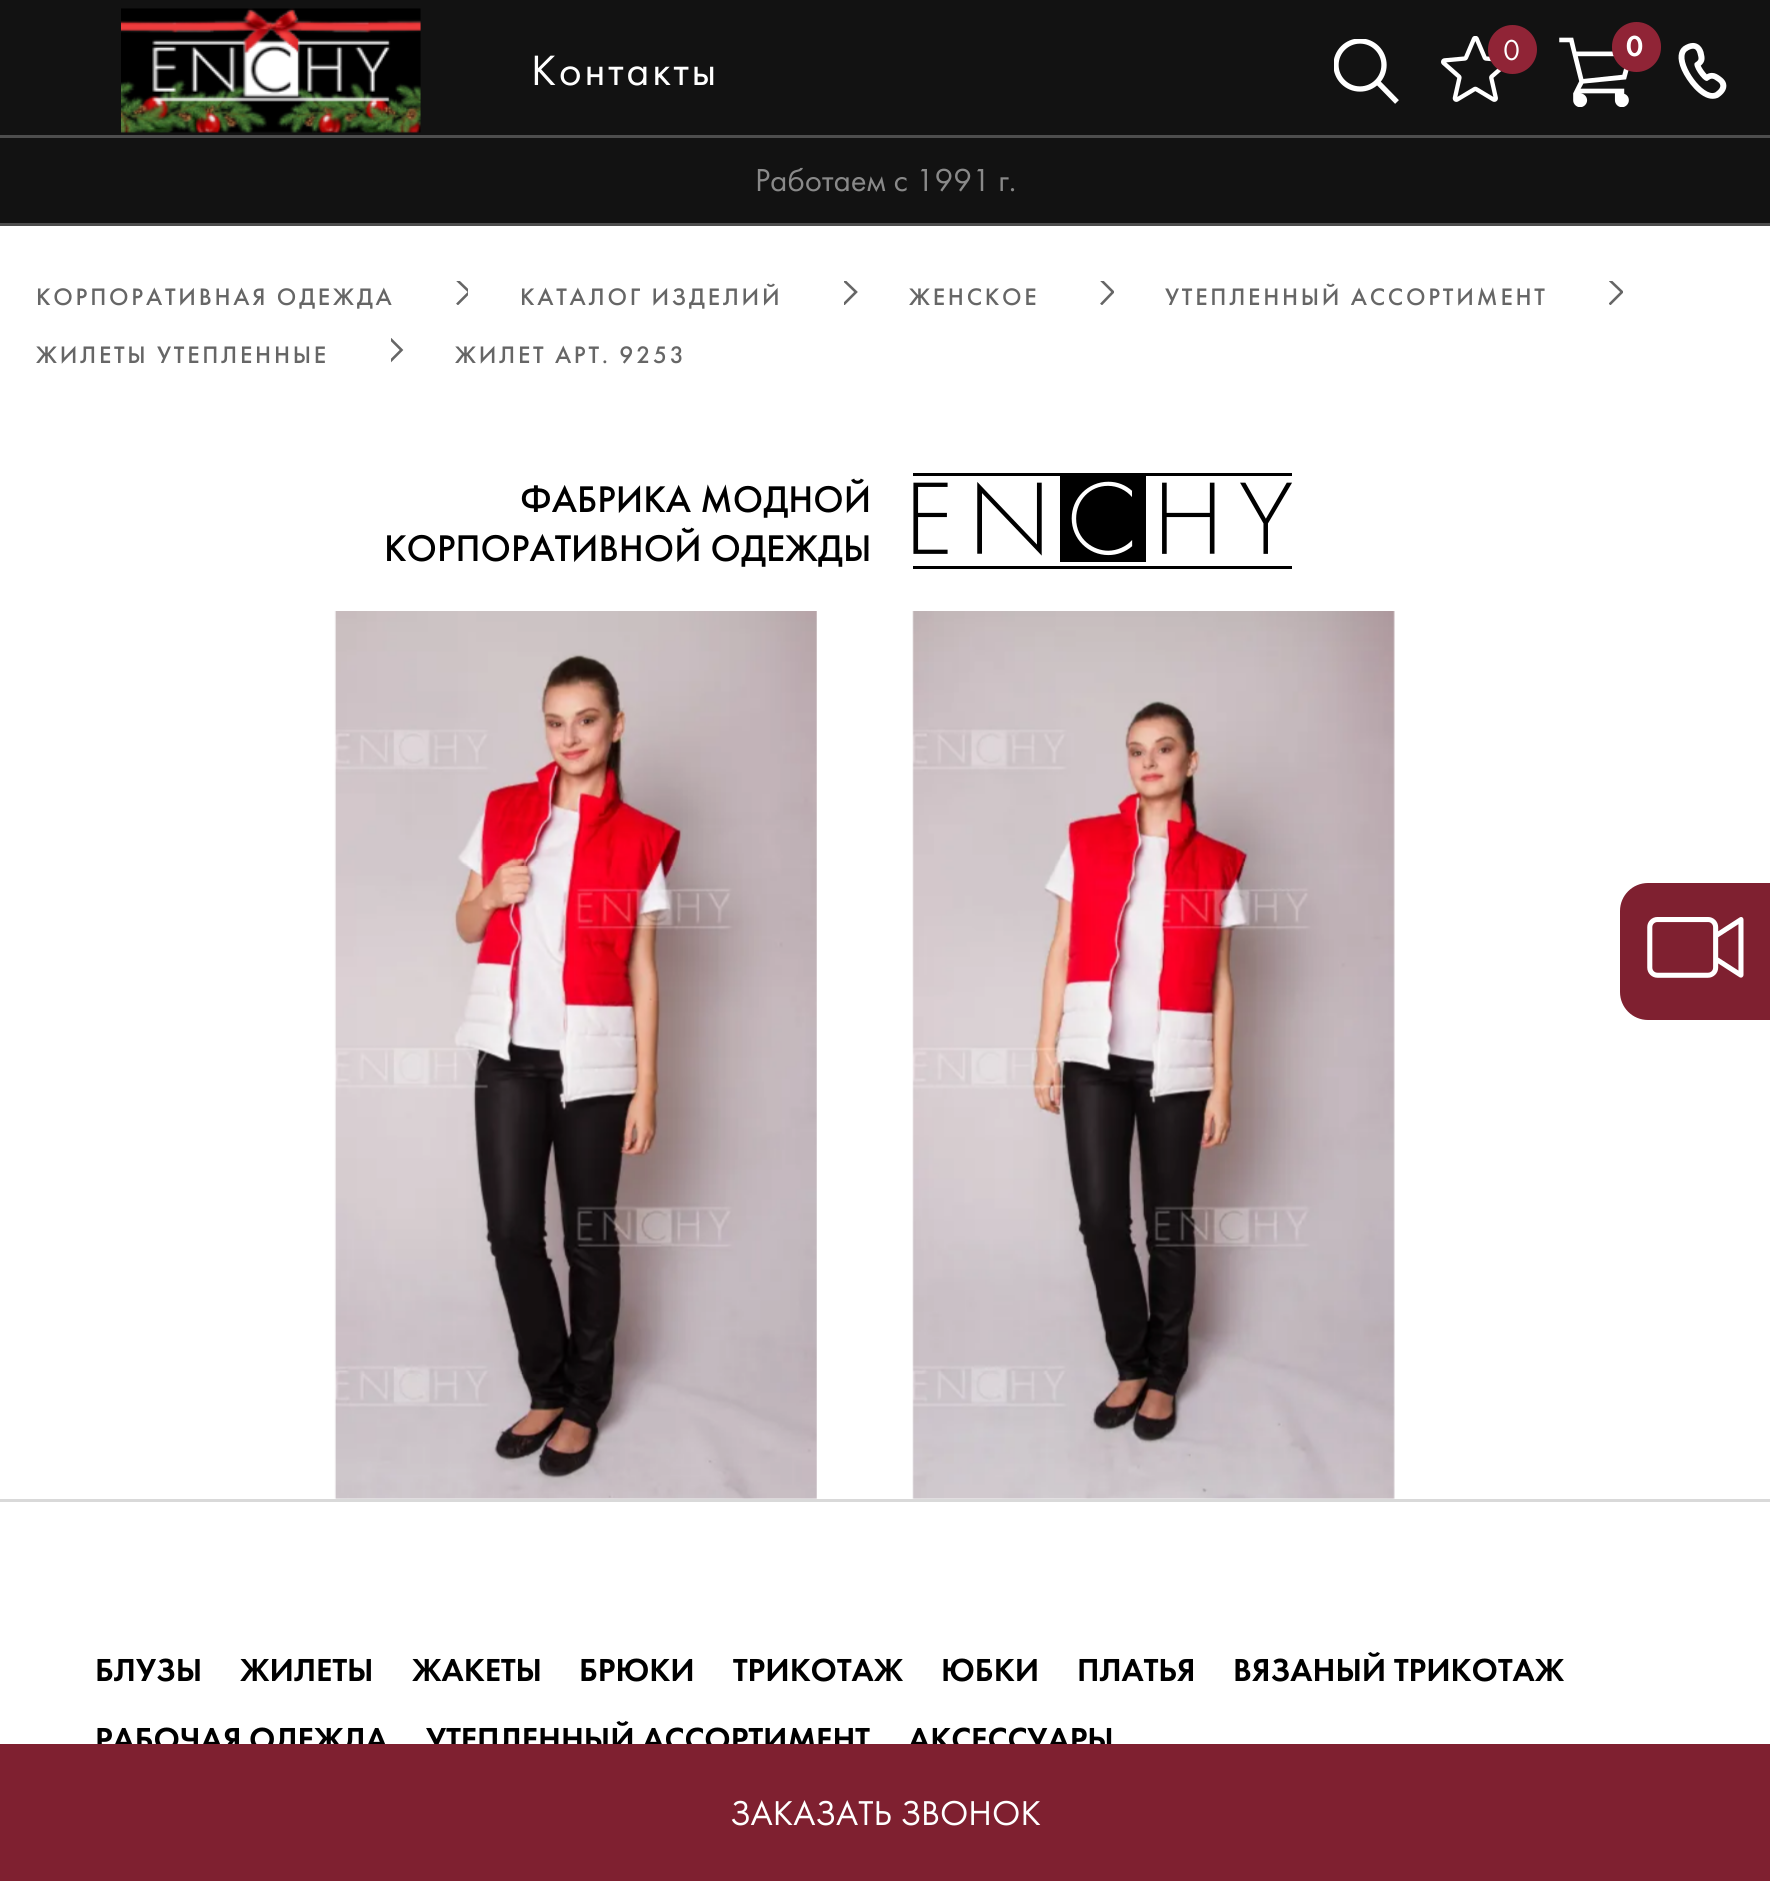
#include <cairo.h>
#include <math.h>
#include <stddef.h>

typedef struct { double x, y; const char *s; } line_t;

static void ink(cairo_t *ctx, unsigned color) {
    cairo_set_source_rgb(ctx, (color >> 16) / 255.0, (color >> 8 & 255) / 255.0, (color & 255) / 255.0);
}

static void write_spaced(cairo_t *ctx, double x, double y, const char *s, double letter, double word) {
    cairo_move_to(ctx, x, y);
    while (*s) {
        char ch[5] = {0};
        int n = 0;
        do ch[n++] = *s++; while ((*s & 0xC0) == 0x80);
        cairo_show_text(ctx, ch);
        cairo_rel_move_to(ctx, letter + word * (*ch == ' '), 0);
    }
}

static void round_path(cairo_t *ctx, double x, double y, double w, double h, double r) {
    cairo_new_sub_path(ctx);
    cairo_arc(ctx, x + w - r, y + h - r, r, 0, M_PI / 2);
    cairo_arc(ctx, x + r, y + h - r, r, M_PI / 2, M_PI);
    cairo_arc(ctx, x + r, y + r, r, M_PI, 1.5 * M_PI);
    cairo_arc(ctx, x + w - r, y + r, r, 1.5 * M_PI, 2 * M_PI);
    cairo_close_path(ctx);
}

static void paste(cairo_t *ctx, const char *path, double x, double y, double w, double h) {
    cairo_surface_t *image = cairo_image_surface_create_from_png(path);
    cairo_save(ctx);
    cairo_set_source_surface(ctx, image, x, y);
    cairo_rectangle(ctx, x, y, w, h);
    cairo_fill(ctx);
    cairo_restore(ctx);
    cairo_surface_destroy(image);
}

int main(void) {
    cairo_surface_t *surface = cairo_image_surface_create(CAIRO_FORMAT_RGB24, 1770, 1881);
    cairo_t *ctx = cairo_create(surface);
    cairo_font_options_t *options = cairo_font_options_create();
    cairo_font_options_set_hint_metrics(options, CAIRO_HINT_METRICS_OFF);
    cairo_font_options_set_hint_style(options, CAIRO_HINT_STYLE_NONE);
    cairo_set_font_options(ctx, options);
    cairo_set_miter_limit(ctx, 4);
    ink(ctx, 0xFFFFFF);
    cairo_paint(ctx);
    ink(ctx, 0x121212);
    cairo_rectangle(ctx, 0, 0, 1770, 135);
    cairo_fill(ctx);
    ink(ctx, 0x4D4D4D);
    cairo_rectangle(ctx, 0, 135, 1770, 3);
    cairo_fill(ctx);
    cairo_save(ctx);
    cairo_rectangle(ctx, 1334, 39, 66, 66);
    cairo_clip(ctx);
    cairo_arc(ctx, 1360, 65, 24, 0, 2 * M_PI);
    ink(ctx, 0xFFFFFF);
    cairo_set_line_width(ctx, 5.3);
    cairo_stroke(ctx);
    cairo_restore(ctx);
    cairo_new_path(ctx);
    cairo_move_to(ctx, 1376, 80.5);
    cairo_line_to(ctx, 1397, 102);
    ink(ctx, 0xFFFFFF);
    cairo_set_line_width(ctx, 5.3);
    cairo_stroke(ctx);
    paste(ctx, "media/1.png", 1441, 36, 61, 66);
    ink(ctx, 0x902436);
    cairo_arc(ctx, 1512.5, 49.5, 24.5, 0, 2 * M_PI);
    cairo_fill(ctx);
    cairo_select_font_face(ctx, "Futura PT", CAIRO_FONT_SLANT_NORMAL, CAIRO_FONT_WEIGHT_NORMAL);
    cairo_set_font_size(ctx, 30);
    ink(ctx, 0xFFFFFF);
    write_spaced(ctx, 1503, 60, "0", 2.75, 0);
    paste(ctx, "media/2.png", 1559, 37, 70, 70);
    ink(ctx, 0x902436);
    round_path(ctx, 1612, 22, 49, 50, 24.5);
    cairo_fill(ctx);
    cairo_select_font_face(ctx, "Futura PT Medium", CAIRO_FONT_SLANT_NORMAL, CAIRO_FONT_WEIGHT_NORMAL);
    ink(ctx, 0xFFFFFF);
    write_spaced(ctx, 1626, 56, "0", 2.75, 0);
    paste(ctx, "media/3.png", 1678, 42, 49, 57);
    cairo_set_font_size(ctx, 33);
    ink(ctx, 0x000000);
    {
        static const line_t items[] = {
            {95, 1750, "РАБОЧАЯ ОДЕЖДА"},
            {426, 1750, "УТЕПЛЕННЫЙ АССОРТИМЕНТ"},
            {908, 1750, "АКСЕССУАРЫ"},
        };
        for (size_t i = 0; i < sizeof items / sizeof *items; i++) {
            cairo_move_to(ctx, items[i].x, items[i].y);
            cairo_show_text(ctx, items[i].s);
        }
    }
    ink(ctx, 0x7F2030);
    cairo_rectangle(ctx, 0, 1744, 1770, 137);
    cairo_fill(ctx);
    cairo_select_font_face(ctx, "Futura PT", CAIRO_FONT_SLANT_NORMAL, CAIRO_FONT_WEIGHT_NORMAL);
    cairo_set_font_size(ctx, 35.75);
    ink(ctx, 0xFFFFFF);
    cairo_move_to(ctx, 730, 1825);
    cairo_show_text(ctx, "ЗАКАЗАТЬ ЗВОНОК");
    cairo_set_font_size(ctx, 44);
    write_spaced(ctx, 531, 85, "Контакты", 2.75, 0);
    paste(ctx, "media/4.png", 121, 8, 300, 125);
    ink(ctx, 0x121212);
    cairo_rectangle(ctx, 0, 138, 1770, 85);
    cairo_fill(ctx);
    ink(ctx, 0x4D4D4D);
    cairo_rectangle(ctx, 0, 223, 1770, 3);
    cairo_fill(ctx);
    cairo_set_font_size(ctx, 33);
    ink(ctx, 0x898989);
    cairo_move_to(ctx, 755, 191);
    cairo_show_text(ctx, "Работаем с 1991 г.");
    cairo_select_font_face(ctx, "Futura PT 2 Medium", CAIRO_FONT_SLANT_NORMAL, CAIRO_FONT_WEIGHT_NORMAL);
    cairo_set_font_size(ctx, 24.75);
    ink(ctx, 0x666666);
    write_spaced(ctx, 36, 305, "КОРПОРАТИВНАЯ ОДЕЖДА", 2.75, 0);
    cairo_save(ctx);
    cairo_rectangle(ctx, 454, 281, 14, 24);
    cairo_clip(ctx);
    cairo_new_path(ctx);
    cairo_move_to(ctx, 457, 304.5);
    cairo_line_to(ctx, 469.5, 292);
    cairo_line_to(ctx, 457, 280);
    cairo_set_line_width(ctx, 2.6);
    cairo_stroke(ctx);
    cairo_restore(ctx);
    write_spaced(ctx, 520, 305, "КАТАЛОГ ИЗДЕЛИЙ", 2.75, 0);
    cairo_save(ctx);
    cairo_rectangle(ctx, 844, 281, 14, 24);
    cairo_clip(ctx);
    cairo_new_path(ctx);
    cairo_move_to(ctx, 843.5, 304.5);
    cairo_line_to(ctx, 856, 292);
    cairo_line_to(ctx, 843.5, 280);
    cairo_set_line_width(ctx, 2.6);
    cairo_stroke(ctx);
    cairo_restore(ctx);
    write_spaced(ctx, 909, 305, "ЖЕНСКОЕ", 2.75, 0);
    cairo_save(ctx);
    cairo_rectangle(ctx, 1100, 281, 14, 24);
    cairo_clip(ctx);
    cairo_new_path(ctx);
    cairo_move_to(ctx, 1101, 304.5);
    cairo_line_to(ctx, 1113, 292);
    cairo_line_to(ctx, 1101, 280);
    cairo_set_line_width(ctx, 2.6);
    cairo_stroke(ctx);
    cairo_restore(ctx);
    write_spaced(ctx, 1165, 305, "УТЕПЛЕННЫЙ АССОРТИМЕНТ", 2.75, 0);
    cairo_save(ctx);
    cairo_rectangle(ctx, 1609, 281, 14, 24);
    cairo_clip(ctx);
    cairo_new_path(ctx);
    cairo_move_to(ctx, 1609.5, 304.5);
    cairo_line_to(ctx, 1622, 292);
    cairo_line_to(ctx, 1609.5, 280);
    cairo_set_line_width(ctx, 2.6);
    cairo_stroke(ctx);
    cairo_restore(ctx);
    write_spaced(ctx, 36, 363, "ЖИЛЕТЫ УТЕПЛЕННЫЕ", 2.75, 0);
    cairo_save(ctx);
    cairo_rectangle(ctx, 391, 338, 13, 25);
    cairo_clip(ctx);
    cairo_new_path(ctx);
    cairo_move_to(ctx, 389, 362.5);
    cairo_line_to(ctx, 401.5, 350);
    cairo_line_to(ctx, 389, 337.5);
    cairo_set_line_width(ctx, 2.6);
    cairo_stroke(ctx);
    cairo_restore(ctx);
    write_spaced(ctx, 455, 363, "ЖИЛЕТ АРТ. 9253", 2.75, 0);
    cairo_set_font_size(ctx, 38.5);
    ink(ctx, 0x000000);
    cairo_move_to(ctx, 520, 512);
    cairo_show_text(ctx, "ФАБРИКА МОДНОЙ");
    cairo_move_to(ctx, 384, 561);
    cairo_show_text(ctx, "КОРПОРАТИВНОЙ ОДЕЖДЫ");
    paste(ctx, "media/5.png", 913, 473, 379, 96);
    paste(ctx, "media/6.png", 334, 611, 483, 888);
    paste(ctx, "media/7.png", 912, 611, 483, 888);
    ink(ctx, 0xD9D9D9);
    cairo_rectangle(ctx, 0, 1499, 1770, 3);
    cairo_fill(ctx);
    cairo_select_font_face(ctx, "Futura PT Medium", CAIRO_FONT_SLANT_NORMAL, CAIRO_FONT_WEIGHT_NORMAL);
    cairo_set_font_size(ctx, 33);
    ink(ctx, 0x000000);
    {
        static const line_t items[] = {
            {95, 1681, "БЛУЗЫ"},
            {240, 1681, "ЖИЛЕТЫ"},
            {412, 1681, "ЖАКЕТЫ"},
            {579, 1681, "БРЮКИ"},
            {733, 1681, "ТРИКОТАЖ"},
            {941, 1681, "ЮБКИ"},
            {1077, 1681, "ПЛАТЬЯ"},
            {1233, 1681, "ВЯЗАНЫЙ ТРИКОТАЖ"},
        };
        for (size_t i = 0; i < sizeof items / sizeof *items; i++) {
            cairo_move_to(ctx, items[i].x, items[i].y);
            cairo_show_text(ctx, items[i].s);
        }
    }
    ink(ctx, 0x7F2030);
    cairo_new_path(ctx);
    cairo_move_to(ctx, 1648, 883);
    cairo_line_to(ctx, 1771, 883);
    cairo_line_to(ctx, 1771, 1020);
    cairo_line_to(ctx, 1648, 1020);
    cairo_curve_to(ctx, 1632.5, 1020, 1620, 1007.5, 1620, 992);
    cairo_line_to(ctx, 1620, 911);
    cairo_curve_to(ctx, 1620, 895.5, 1632.5, 883, 1648, 883);
    cairo_close_path(ctx);
    cairo_fill(ctx);
    paste(ctx, "media/8.png", 1647, 917, 97, 61);
    cairo_surface_write_to_png(surface, "image.png");
    cairo_font_options_destroy(options);
    cairo_destroy(ctx);
    cairo_surface_destroy(surface);
    return 0;
}
